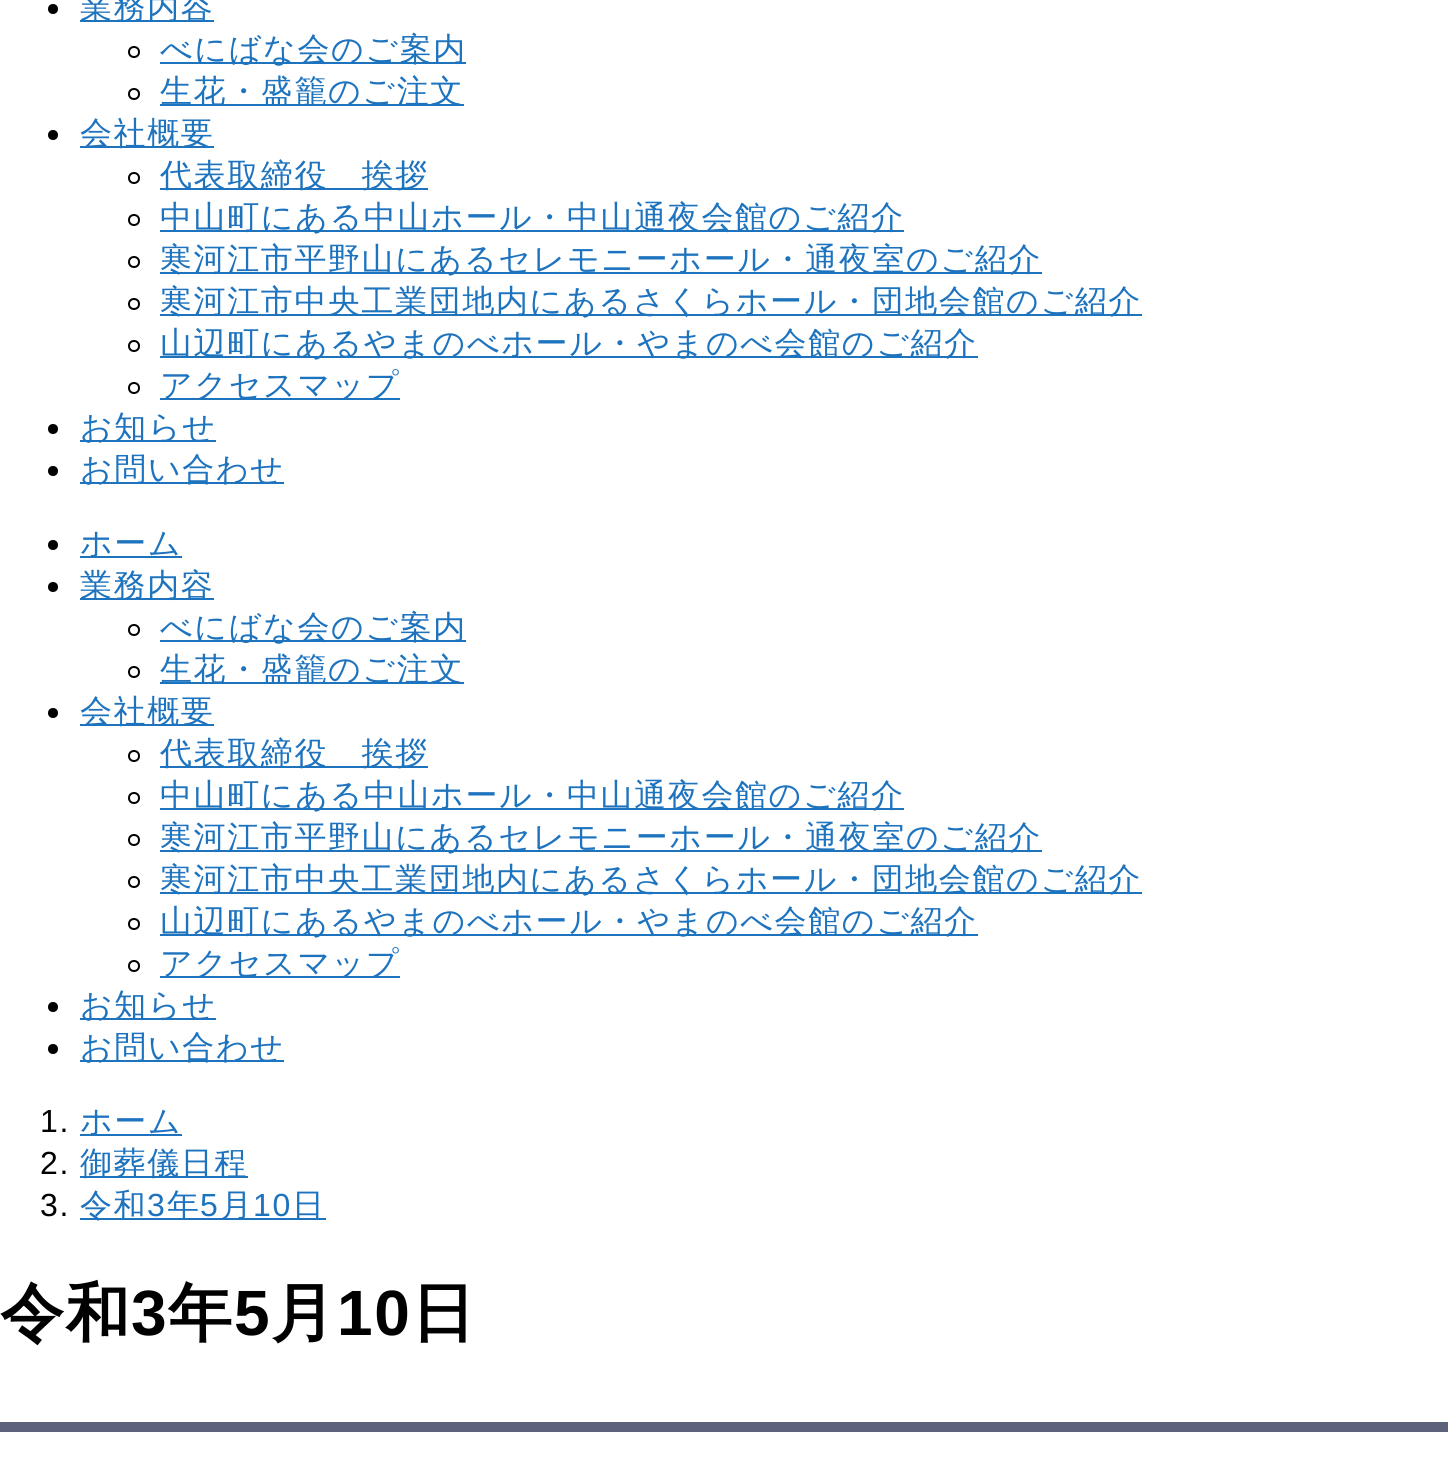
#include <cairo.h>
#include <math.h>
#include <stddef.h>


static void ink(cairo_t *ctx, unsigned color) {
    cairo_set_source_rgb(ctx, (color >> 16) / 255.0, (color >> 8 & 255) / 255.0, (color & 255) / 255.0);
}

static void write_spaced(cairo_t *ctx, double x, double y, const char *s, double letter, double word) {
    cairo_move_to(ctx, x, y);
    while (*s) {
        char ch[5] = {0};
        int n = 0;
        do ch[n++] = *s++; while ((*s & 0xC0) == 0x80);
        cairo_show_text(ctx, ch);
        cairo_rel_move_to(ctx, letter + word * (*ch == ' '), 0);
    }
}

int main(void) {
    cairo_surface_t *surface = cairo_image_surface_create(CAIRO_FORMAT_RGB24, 1448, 1468);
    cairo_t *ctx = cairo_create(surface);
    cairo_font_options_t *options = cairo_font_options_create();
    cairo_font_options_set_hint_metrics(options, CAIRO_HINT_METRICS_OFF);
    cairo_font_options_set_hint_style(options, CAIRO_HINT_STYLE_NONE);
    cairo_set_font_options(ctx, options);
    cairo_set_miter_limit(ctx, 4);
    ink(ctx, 0xFFFFFF);
    cairo_paint(ctx);
    ink(ctx, 0x000000);
    cairo_arc(ctx, 53, 9, 5, 0, 2 * M_PI);
    cairo_fill(ctx);
    ink(ctx, 0x1E73BE);
    cairo_rectangle(ctx, 80, 20, 134, 2);
    cairo_fill(ctx);
    cairo_select_font_face(ctx, "WenQuanYi Zen Hei Medium", CAIRO_FONT_SLANT_NORMAL, CAIRO_FONT_WEIGHT_NORMAL);
    cairo_set_font_size(ctx, 32);
    write_spaced(ctx, 80, 18, "業務内容", 1.6, 0);
    cairo_new_path(ctx);
    cairo_arc(ctx, 134, 52, 5, 0, 2 * M_PI);
    ink(ctx, 0x000000);
    cairo_stroke(ctx);
    ink(ctx, 0x1E73BE);
    cairo_rectangle(ctx, 160, 62, 306, 2);
    cairo_fill(ctx);
    write_spaced(ctx, 160, 60, "べにばな会のご案内", 1.6, 0);
    cairo_new_path(ctx);
    cairo_arc(ctx, 134, 94, 5, 0, 2 * M_PI);
    ink(ctx, 0x000000);
    cairo_stroke(ctx);
    ink(ctx, 0x1E73BE);
    cairo_rectangle(ctx, 160, 104, 304, 2);
    cairo_fill(ctx);
    write_spaced(ctx, 160, 102, "生花・盛籠のご注文", 1.6, 0);
    ink(ctx, 0x000000);
    cairo_new_path(ctx);
    cairo_arc(ctx, 53, 135, 5, 0, 2 * M_PI);
    cairo_fill(ctx);
    ink(ctx, 0x1E73BE);
    cairo_rectangle(ctx, 80, 146, 134, 2);
    cairo_fill(ctx);
    write_spaced(ctx, 80, 144, "会社概要", 1.6, 0);
    cairo_new_path(ctx);
    cairo_arc(ctx, 134, 178, 5, 0, 2 * M_PI);
    ink(ctx, 0x000000);
    cairo_stroke(ctx);
    ink(ctx, 0x1E73BE);
    cairo_rectangle(ctx, 160, 188, 268, 2);
    cairo_fill(ctx);
    write_spaced(ctx, 160, 186, "代表取締役　挨拶", 1.6, 0);
    cairo_new_path(ctx);
    cairo_arc(ctx, 134, 220, 5, 0, 2 * M_PI);
    ink(ctx, 0x000000);
    cairo_stroke(ctx);
    ink(ctx, 0x1E73BE);
    cairo_rectangle(ctx, 160, 230, 744, 2);
    cairo_fill(ctx);
    write_spaced(ctx, 160, 228, "中山町にある中山ホール・中山通夜会館のご紹介", 1.6, 0);
    cairo_new_path(ctx);
    cairo_arc(ctx, 134, 262, 5, 0, 2 * M_PI);
    ink(ctx, 0x000000);
    cairo_stroke(ctx);
    ink(ctx, 0x1E73BE);
    cairo_rectangle(ctx, 160, 272, 882, 2);
    cairo_fill(ctx);
    write_spaced(ctx, 160, 270, "寒河江市平野山にあるセレモニーホール・通夜室のご紹介", 1.6, 0);
    cairo_new_path(ctx);
    cairo_arc(ctx, 134, 304, 5, 0, 2 * M_PI);
    ink(ctx, 0x000000);
    cairo_stroke(ctx);
    ink(ctx, 0x1E73BE);
    cairo_rectangle(ctx, 160, 314, 982, 2);
    cairo_fill(ctx);
    write_spaced(ctx, 160, 312, "寒河江市中央工業団地内にあるさくらホール・団地会館のご紹介", 1.6, 0);
    cairo_new_path(ctx);
    cairo_arc(ctx, 134, 346, 5, 0, 2 * M_PI);
    ink(ctx, 0x000000);
    cairo_stroke(ctx);
    ink(ctx, 0x1E73BE);
    cairo_rectangle(ctx, 160, 356, 818, 2);
    cairo_fill(ctx);
    write_spaced(ctx, 160, 354, "山辺町にあるやまのべホール・やまのべ会館のご紹介", 1.6, 0);
    cairo_new_path(ctx);
    cairo_arc(ctx, 134, 388, 5, 0, 2 * M_PI);
    ink(ctx, 0x000000);
    cairo_stroke(ctx);
    ink(ctx, 0x1E73BE);
    cairo_rectangle(ctx, 160, 398, 240, 2);
    cairo_fill(ctx);
    write_spaced(ctx, 160, 396, "アクセスマップ", 1.6, 0);
    ink(ctx, 0x000000);
    cairo_new_path(ctx);
    cairo_arc(ctx, 53, 429, 5, 0, 2 * M_PI);
    cairo_fill(ctx);
    ink(ctx, 0x1E73BE);
    cairo_rectangle(ctx, 80, 440, 136, 2);
    cairo_fill(ctx);
    write_spaced(ctx, 80, 438, "お知らせ", 1.6, 0);
    ink(ctx, 0x000000);
    cairo_new_path(ctx);
    cairo_arc(ctx, 53, 471, 5, 0, 2 * M_PI);
    cairo_fill(ctx);
    ink(ctx, 0x1E73BE);
    cairo_rectangle(ctx, 80, 482, 204, 2);
    cairo_fill(ctx);
    write_spaced(ctx, 80, 480, "お問い合わせ", 1.6, 0);
    ink(ctx, 0x000000);
    cairo_new_path(ctx);
    cairo_arc(ctx, 53, 545, 5, 0, 2 * M_PI);
    cairo_fill(ctx);
    ink(ctx, 0x1E73BE);
    cairo_rectangle(ctx, 80, 556, 102, 2);
    cairo_fill(ctx);
    write_spaced(ctx, 80, 554, "ホーム", 1.6, 0);
    ink(ctx, 0x000000);
    cairo_new_path(ctx);
    cairo_arc(ctx, 53, 587, 5, 0, 2 * M_PI);
    cairo_fill(ctx);
    ink(ctx, 0x1E73BE);
    cairo_rectangle(ctx, 80, 598, 134, 2);
    cairo_fill(ctx);
    write_spaced(ctx, 80, 596, "業務内容", 1.6, 0);
    cairo_new_path(ctx);
    cairo_arc(ctx, 134, 630, 5, 0, 2 * M_PI);
    ink(ctx, 0x000000);
    cairo_stroke(ctx);
    ink(ctx, 0x1E73BE);
    cairo_rectangle(ctx, 160, 640, 306, 2);
    cairo_fill(ctx);
    write_spaced(ctx, 160, 638, "べにばな会のご案内", 1.6, 0);
    cairo_new_path(ctx);
    cairo_arc(ctx, 134, 672, 5, 0, 2 * M_PI);
    ink(ctx, 0x000000);
    cairo_stroke(ctx);
    ink(ctx, 0x1E73BE);
    cairo_rectangle(ctx, 160, 682, 304, 2);
    cairo_fill(ctx);
    write_spaced(ctx, 160, 680, "生花・盛籠のご注文", 1.6, 0);
    ink(ctx, 0x000000);
    cairo_new_path(ctx);
    cairo_arc(ctx, 53, 713, 5, 0, 2 * M_PI);
    cairo_fill(ctx);
    ink(ctx, 0x1E73BE);
    cairo_rectangle(ctx, 80, 724, 134, 2);
    cairo_fill(ctx);
    write_spaced(ctx, 80, 722, "会社概要", 1.6, 0);
    cairo_new_path(ctx);
    cairo_arc(ctx, 134, 756, 5, 0, 2 * M_PI);
    ink(ctx, 0x000000);
    cairo_stroke(ctx);
    ink(ctx, 0x1E73BE);
    cairo_rectangle(ctx, 160, 766, 268, 2);
    cairo_fill(ctx);
    write_spaced(ctx, 160, 764, "代表取締役　挨拶", 1.6, 0);
    cairo_new_path(ctx);
    cairo_arc(ctx, 134, 798, 5, 0, 2 * M_PI);
    ink(ctx, 0x000000);
    cairo_stroke(ctx);
    ink(ctx, 0x1E73BE);
    cairo_rectangle(ctx, 160, 808, 744, 2);
    cairo_fill(ctx);
    write_spaced(ctx, 160, 806, "中山町にある中山ホール・中山通夜会館のご紹介", 1.6, 0);
    cairo_new_path(ctx);
    cairo_arc(ctx, 134, 840, 5, 0, 2 * M_PI);
    ink(ctx, 0x000000);
    cairo_stroke(ctx);
    ink(ctx, 0x1E73BE);
    cairo_rectangle(ctx, 160, 850, 882, 2);
    cairo_fill(ctx);
    write_spaced(ctx, 160, 848, "寒河江市平野山にあるセレモニーホール・通夜室のご紹介", 1.6, 0);
    cairo_new_path(ctx);
    cairo_arc(ctx, 134, 882, 5, 0, 2 * M_PI);
    ink(ctx, 0x000000);
    cairo_stroke(ctx);
    ink(ctx, 0x1E73BE);
    cairo_rectangle(ctx, 160, 892, 982, 2);
    cairo_fill(ctx);
    write_spaced(ctx, 160, 890, "寒河江市中央工業団地内にあるさくらホール・団地会館のご紹介", 1.6, 0);
    cairo_new_path(ctx);
    cairo_arc(ctx, 134, 924, 5, 0, 2 * M_PI);
    ink(ctx, 0x000000);
    cairo_stroke(ctx);
    ink(ctx, 0x1E73BE);
    cairo_rectangle(ctx, 160, 934, 818, 2);
    cairo_fill(ctx);
    write_spaced(ctx, 160, 932, "山辺町にあるやまのべホール・やまのべ会館のご紹介", 1.6, 0);
    cairo_new_path(ctx);
    cairo_arc(ctx, 134, 966, 5, 0, 2 * M_PI);
    ink(ctx, 0x000000);
    cairo_stroke(ctx);
    ink(ctx, 0x1E73BE);
    cairo_rectangle(ctx, 160, 976, 240, 2);
    cairo_fill(ctx);
    write_spaced(ctx, 160, 974, "アクセスマップ", 1.6, 0);
    ink(ctx, 0x000000);
    cairo_new_path(ctx);
    cairo_arc(ctx, 53, 1007, 5, 0, 2 * M_PI);
    cairo_fill(ctx);
    ink(ctx, 0x1E73BE);
    cairo_rectangle(ctx, 80, 1018, 136, 2);
    cairo_fill(ctx);
    write_spaced(ctx, 80, 1016, "お知らせ", 1.6, 0);
    ink(ctx, 0x000000);
    cairo_new_path(ctx);
    cairo_arc(ctx, 53, 1049, 5, 0, 2 * M_PI);
    cairo_fill(ctx);
    ink(ctx, 0x1E73BE);
    cairo_rectangle(ctx, 80, 1060, 204, 2);
    cairo_fill(ctx);
    write_spaced(ctx, 80, 1058, "お問い合わせ", 1.6, 0);
    cairo_select_font_face(ctx, "Liberation Sans", CAIRO_FONT_SLANT_NORMAL, CAIRO_FONT_WEIGHT_NORMAL);
    ink(ctx, 0x000000);
    write_spaced(ctx, 40, 1132, "1.", 1.6, 0);
    ink(ctx, 0x1E73BE);
    cairo_rectangle(ctx, 80, 1134, 102, 2);
    cairo_fill(ctx);
    cairo_select_font_face(ctx, "WenQuanYi Zen Hei Medium", CAIRO_FONT_SLANT_NORMAL, CAIRO_FONT_WEIGHT_NORMAL);
    write_spaced(ctx, 80, 1132, "ホーム", 1.6, 0);
    cairo_select_font_face(ctx, "Liberation Sans", CAIRO_FONT_SLANT_NORMAL, CAIRO_FONT_WEIGHT_NORMAL);
    ink(ctx, 0x000000);
    write_spaced(ctx, 40, 1174, "2.", 1.6, 0);
    ink(ctx, 0x1E73BE);
    cairo_rectangle(ctx, 80, 1176, 168, 2);
    cairo_fill(ctx);
    cairo_select_font_face(ctx, "WenQuanYi Zen Hei Medium", CAIRO_FONT_SLANT_NORMAL, CAIRO_FONT_WEIGHT_NORMAL);
    write_spaced(ctx, 80, 1174, "御葬儀日程", 1.6, 0);
    cairo_select_font_face(ctx, "Liberation Sans", CAIRO_FONT_SLANT_NORMAL, CAIRO_FONT_WEIGHT_NORMAL);
    ink(ctx, 0x000000);
    write_spaced(ctx, 40, 1216, "3.", 1.6, 0);
    ink(ctx, 0x1E73BE);
    cairo_rectangle(ctx, 80, 1218, 246, 2);
    cairo_fill(ctx);
    cairo_select_font_face(ctx, "WenQuanYi Zen Hei Medium", CAIRO_FONT_SLANT_NORMAL, CAIRO_FONT_WEIGHT_NORMAL);
    write_spaced(ctx, 80, 1216, "令和", 1.6, 0);
    cairo_select_font_face(ctx, "Liberation Sans", CAIRO_FONT_SLANT_NORMAL, CAIRO_FONT_WEIGHT_NORMAL);
    write_spaced(ctx, 147, 1216, "3", 1.6, 0);
    cairo_select_font_face(ctx, "WenQuanYi Zen Hei Medium", CAIRO_FONT_SLANT_NORMAL, CAIRO_FONT_WEIGHT_NORMAL);
    write_spaced(ctx, 167, 1216, "年", 1.6, 0);
    cairo_select_font_face(ctx, "Liberation Sans", CAIRO_FONT_SLANT_NORMAL, CAIRO_FONT_WEIGHT_NORMAL);
    write_spaced(ctx, 200, 1216, "5", 1.6, 0);
    cairo_select_font_face(ctx, "WenQuanYi Zen Hei Medium", CAIRO_FONT_SLANT_NORMAL, CAIRO_FONT_WEIGHT_NORMAL);
    write_spaced(ctx, 220, 1216, "月", 1.6, 0);
    cairo_select_font_face(ctx, "Liberation Sans", CAIRO_FONT_SLANT_NORMAL, CAIRO_FONT_WEIGHT_NORMAL);
    write_spaced(ctx, 253, 1216, "10", 1.6, 0);
    cairo_select_font_face(ctx, "WenQuanYi Zen Hei Medium", CAIRO_FONT_SLANT_NORMAL, CAIRO_FONT_WEIGHT_NORMAL);
    write_spaced(ctx, 292, 1216, "日", 1.6, 0);
    cairo_select_font_face(ctx, "WenQuanYi Zen Hei", CAIRO_FONT_SLANT_NORMAL, CAIRO_FONT_WEIGHT_BOLD);
    cairo_set_font_size(ctx, 64);
    ink(ctx, 0x000000);
    write_spaced(ctx, 0, 1335, "令和", 1.6, 0);
    cairo_select_font_face(ctx, "Liberation Sans", CAIRO_FONT_SLANT_NORMAL, CAIRO_FONT_WEIGHT_BOLD);
    write_spaced(ctx, 131, 1335, "3", 1.6, 0);
    cairo_select_font_face(ctx, "WenQuanYi Zen Hei", CAIRO_FONT_SLANT_NORMAL, CAIRO_FONT_WEIGHT_BOLD);
    write_spaced(ctx, 168, 1335, "年", 1.6, 0);
    cairo_select_font_face(ctx, "Liberation Sans", CAIRO_FONT_SLANT_NORMAL, CAIRO_FONT_WEIGHT_BOLD);
    write_spaced(ctx, 234, 1335, "5", 1.6, 0);
    cairo_select_font_face(ctx, "WenQuanYi Zen Hei", CAIRO_FONT_SLANT_NORMAL, CAIRO_FONT_WEIGHT_BOLD);
    write_spaced(ctx, 271, 1335, "月", 1.6, 0);
    cairo_select_font_face(ctx, "Liberation Sans", CAIRO_FONT_SLANT_NORMAL, CAIRO_FONT_WEIGHT_BOLD);
    write_spaced(ctx, 337, 1335, "10", 1.6, 0);
    cairo_select_font_face(ctx, "WenQuanYi Zen Hei", CAIRO_FONT_SLANT_NORMAL, CAIRO_FONT_WEIGHT_BOLD);
    write_spaced(ctx, 411, 1335, "日", 1.6, 0);
    ink(ctx, 0x5D627B);
    cairo_rectangle(ctx, 0, 1422, 1448, 10);
    cairo_fill(ctx);
    cairo_surface_write_to_png(surface, "image.png");
    cairo_font_options_destroy(options);
    cairo_destroy(ctx);
    cairo_surface_destroy(surface);
    return 0;
}
